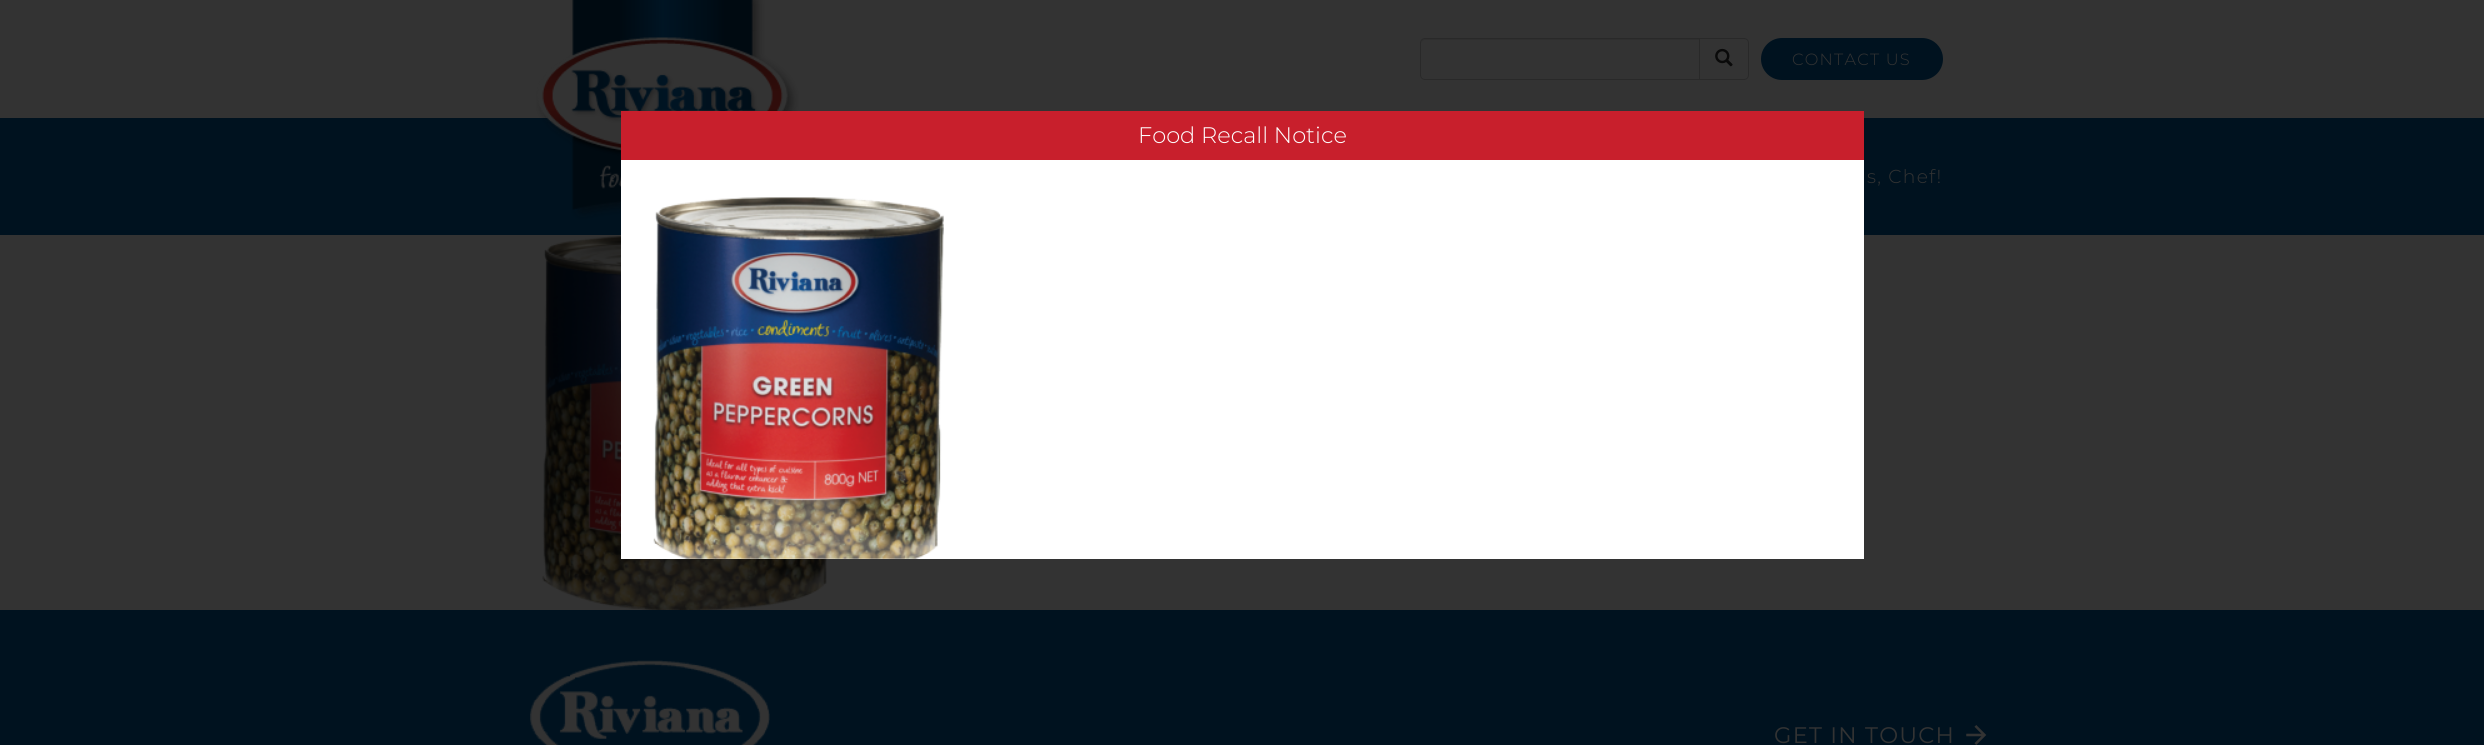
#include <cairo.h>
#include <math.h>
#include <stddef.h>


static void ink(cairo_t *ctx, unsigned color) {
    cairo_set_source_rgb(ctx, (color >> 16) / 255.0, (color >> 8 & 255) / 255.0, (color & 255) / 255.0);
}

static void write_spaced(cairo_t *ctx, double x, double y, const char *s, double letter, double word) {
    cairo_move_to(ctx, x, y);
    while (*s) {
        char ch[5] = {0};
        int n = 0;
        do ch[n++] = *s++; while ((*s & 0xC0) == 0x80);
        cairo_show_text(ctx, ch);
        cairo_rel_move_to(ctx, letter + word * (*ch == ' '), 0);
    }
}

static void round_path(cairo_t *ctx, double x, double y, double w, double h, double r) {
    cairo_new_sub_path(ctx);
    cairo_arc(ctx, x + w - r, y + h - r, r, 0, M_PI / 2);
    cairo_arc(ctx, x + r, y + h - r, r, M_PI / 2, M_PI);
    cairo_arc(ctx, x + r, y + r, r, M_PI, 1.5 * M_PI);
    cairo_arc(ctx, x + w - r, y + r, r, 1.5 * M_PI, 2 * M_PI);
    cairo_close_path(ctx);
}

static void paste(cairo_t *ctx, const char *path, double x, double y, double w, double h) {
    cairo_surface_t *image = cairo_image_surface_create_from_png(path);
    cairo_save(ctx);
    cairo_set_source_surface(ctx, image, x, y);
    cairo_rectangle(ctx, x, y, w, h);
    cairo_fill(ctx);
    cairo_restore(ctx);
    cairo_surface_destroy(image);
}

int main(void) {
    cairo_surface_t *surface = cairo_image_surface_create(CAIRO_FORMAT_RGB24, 2484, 745);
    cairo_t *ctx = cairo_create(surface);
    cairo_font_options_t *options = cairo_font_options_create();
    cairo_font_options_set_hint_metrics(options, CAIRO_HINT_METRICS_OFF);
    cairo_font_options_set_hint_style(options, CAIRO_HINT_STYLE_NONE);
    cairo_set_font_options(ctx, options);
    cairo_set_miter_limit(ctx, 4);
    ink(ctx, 0x333333);
    cairo_paint(ctx);
    ink(ctx, 0x00121F);
    cairo_rectangle(ctx, 0, 118, 2484, 117);
    cairo_fill(ctx);
    paste(ctx, "media/2.png", 536, 0, 263, 220);
    paste(ctx, "media/4.png", 542, 236, 285, 374);
    ink(ctx, 0xFFFFFF);
    cairo_rectangle(ctx, 621, 160, 1243, 399);
    cairo_fill(ctx);
    ink(ctx, 0xC81F2C);
    cairo_rectangle(ctx, 621, 111, 1243, 49);
    cairo_fill(ctx);
    cairo_select_font_face(ctx, "Montserrat Light", CAIRO_FONT_SLANT_NORMAL, CAIRO_FONT_WEIGHT_NORMAL);
    cairo_set_font_size(ctx, 22.5);
    ink(ctx, 0xFFFFFF);
    cairo_move_to(ctx, 1138, 143);
    cairo_show_text(ctx, "Food Recall Notice");
    paste(ctx, "media/1.png", 653, 197, 291, 362);
    ink(ctx, 0x2F2F2F);
    cairo_new_path(ctx);
    cairo_move_to(ctx, 1425, 40);
    cairo_line_to(ctx, 1699, 40);
    cairo_line_to(ctx, 1699, 39);
    cairo_line_to(ctx, 1425, 39);
    cairo_curve_to(ctx, 1422, 39, 1421, 41, 1421, 44);
    cairo_curve_to(ctx, 1421, 42, 1423, 40, 1425, 40);
    cairo_close_path(ctx);
    cairo_fill(ctx);
    cairo_new_path(ctx);
    cairo_move_to(ctx, 1425, 38.5);
    cairo_line_to(ctx, 1699.5, 38.5);
    cairo_line_to(ctx, 1699.5, 79.5);
    cairo_line_to(ctx, 1425, 79.5);
    cairo_curve_to(ctx, 1422.5, 79.5, 1420.5, 77.5, 1420.5, 75);
    cairo_line_to(ctx, 1420.5, 43);
    cairo_curve_to(ctx, 1420.5, 40.5, 1422.5, 38.5, 1425, 38.5);
    cairo_close_path(ctx);
    ink(ctx, 0x292929);
    cairo_set_line_width(ctx, 1);
    cairo_stroke(ctx);
    ink(ctx, 0x333333);
    cairo_new_path(ctx);
    cairo_move_to(ctx, 1699.5, 38.5);
    cairo_line_to(ctx, 1744, 38.5);
    cairo_curve_to(ctx, 1746.5, 38.5, 1748.5, 40.5, 1748.5, 43);
    cairo_line_to(ctx, 1748.5, 75);
    cairo_curve_to(ctx, 1748.5, 77.5, 1746.5, 79.5, 1744, 79.5);
    cairo_line_to(ctx, 1699.5, 79.5);
    cairo_close_path(ctx);
    cairo_fill_preserve(ctx);
    ink(ctx, 0x292929);
    cairo_stroke(ctx);
    paste(ctx, "media/3.png", 1715, 48, 18, 19);
    ink(ctx, 0x00121F);
    round_path(ctx, 1761, 38, 182, 42, 21);
    cairo_fill(ctx);
    cairo_set_font_size(ctx, 16.25);
    ink(ctx, 0x333333);
    write_spaced(ctx, 1792, 65, "CONTACT US", 1.25, 0);
    cairo_set_font_size(ctx, 18.75);
    write_spaced(ctx, 1867, 183, "s, Chef!", 1.25, 0);
    ink(ctx, 0x00121F);
    cairo_rectangle(ctx, 0, 610, 2484, 135);
    cairo_fill(ctx);
    paste(ctx, "media/5.png", 530, 660, 240, 85);
    cairo_select_font_face(ctx, "Montserrat", CAIRO_FONT_SLANT_NORMAL, CAIRO_FONT_WEIGHT_NORMAL);
    cairo_set_font_size(ctx, 22.5);
    ink(ctx, 0x333333);
    write_spaced(ctx, 1774, 743, "GET IN TOUCH", 1.25, 0);
    paste(ctx, "media/6.png", 1966, 725, 21, 20);
    cairo_surface_write_to_png(surface, "image.png");
    cairo_font_options_destroy(options);
    cairo_destroy(ctx);
    cairo_surface_destroy(surface);
    return 0;
}
